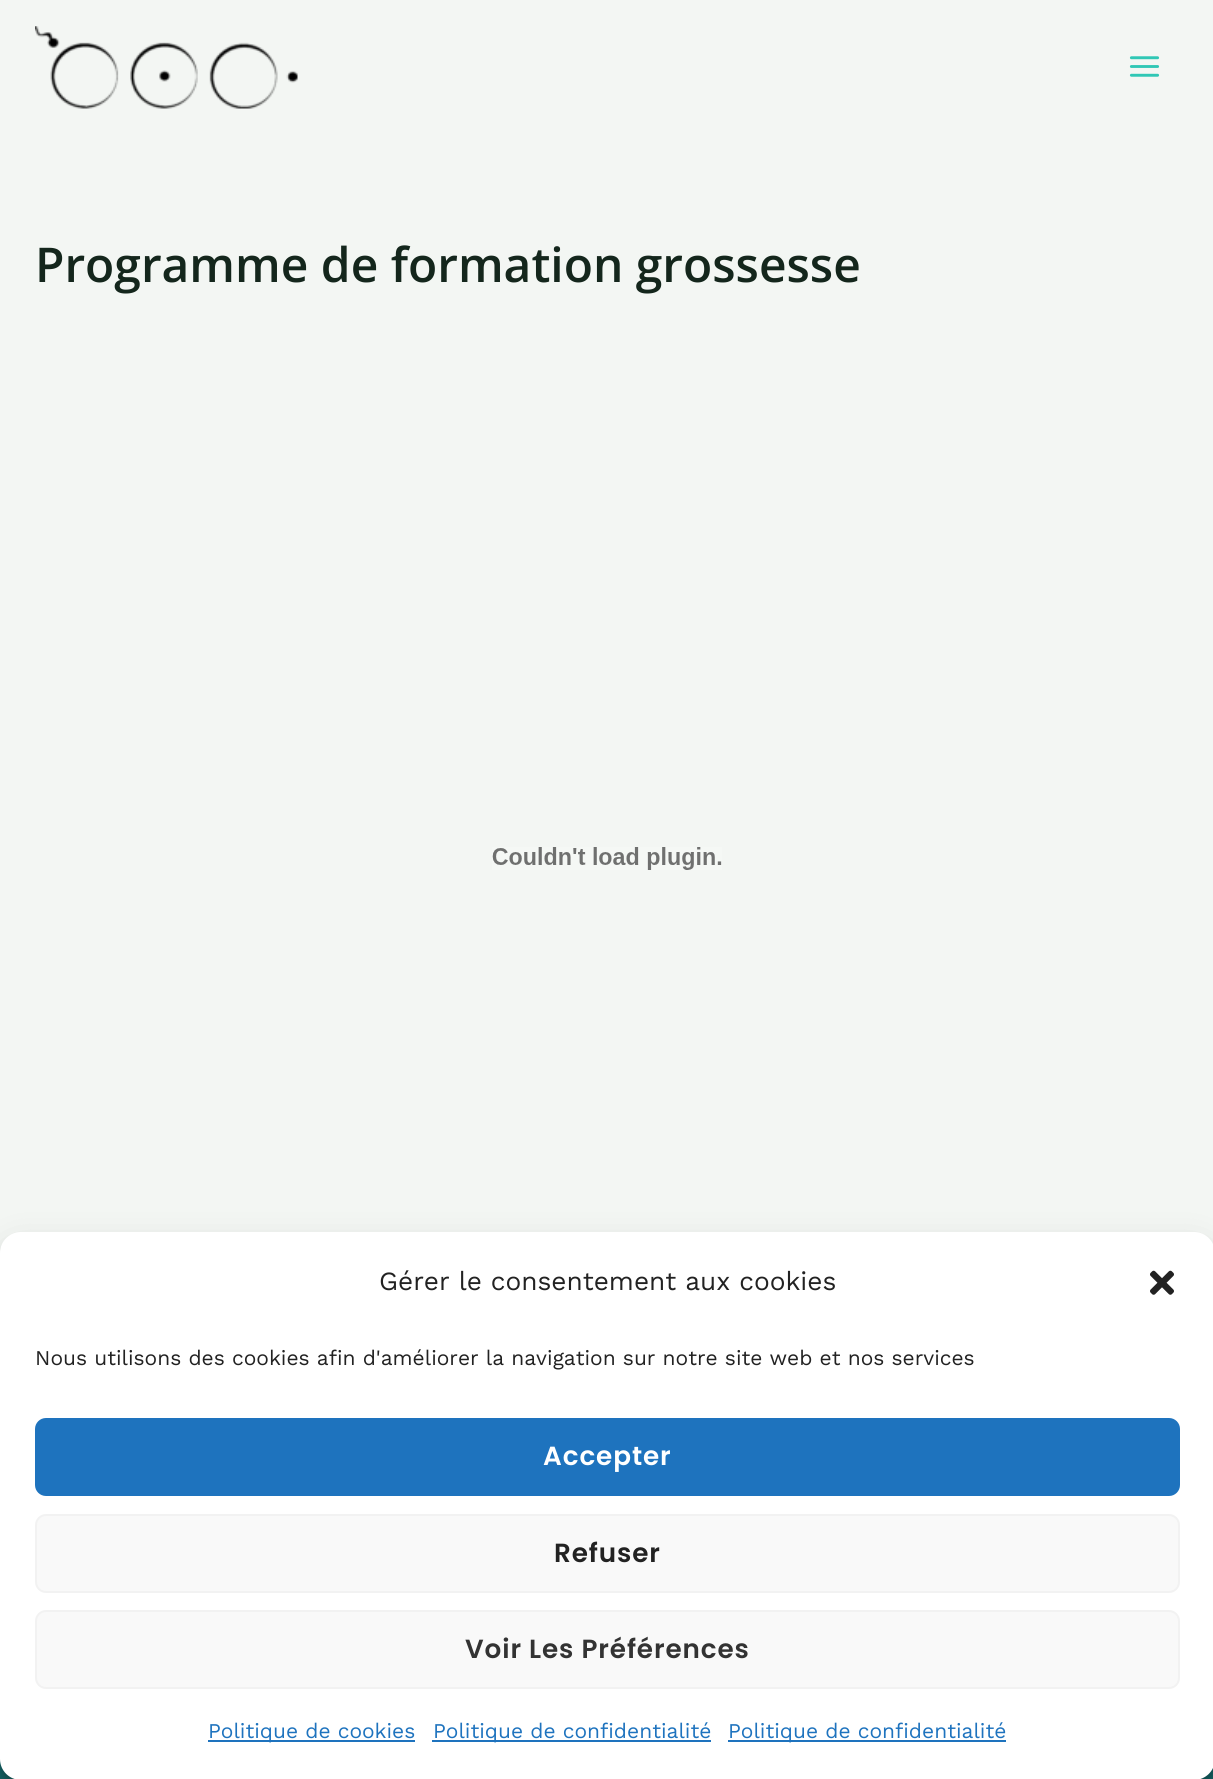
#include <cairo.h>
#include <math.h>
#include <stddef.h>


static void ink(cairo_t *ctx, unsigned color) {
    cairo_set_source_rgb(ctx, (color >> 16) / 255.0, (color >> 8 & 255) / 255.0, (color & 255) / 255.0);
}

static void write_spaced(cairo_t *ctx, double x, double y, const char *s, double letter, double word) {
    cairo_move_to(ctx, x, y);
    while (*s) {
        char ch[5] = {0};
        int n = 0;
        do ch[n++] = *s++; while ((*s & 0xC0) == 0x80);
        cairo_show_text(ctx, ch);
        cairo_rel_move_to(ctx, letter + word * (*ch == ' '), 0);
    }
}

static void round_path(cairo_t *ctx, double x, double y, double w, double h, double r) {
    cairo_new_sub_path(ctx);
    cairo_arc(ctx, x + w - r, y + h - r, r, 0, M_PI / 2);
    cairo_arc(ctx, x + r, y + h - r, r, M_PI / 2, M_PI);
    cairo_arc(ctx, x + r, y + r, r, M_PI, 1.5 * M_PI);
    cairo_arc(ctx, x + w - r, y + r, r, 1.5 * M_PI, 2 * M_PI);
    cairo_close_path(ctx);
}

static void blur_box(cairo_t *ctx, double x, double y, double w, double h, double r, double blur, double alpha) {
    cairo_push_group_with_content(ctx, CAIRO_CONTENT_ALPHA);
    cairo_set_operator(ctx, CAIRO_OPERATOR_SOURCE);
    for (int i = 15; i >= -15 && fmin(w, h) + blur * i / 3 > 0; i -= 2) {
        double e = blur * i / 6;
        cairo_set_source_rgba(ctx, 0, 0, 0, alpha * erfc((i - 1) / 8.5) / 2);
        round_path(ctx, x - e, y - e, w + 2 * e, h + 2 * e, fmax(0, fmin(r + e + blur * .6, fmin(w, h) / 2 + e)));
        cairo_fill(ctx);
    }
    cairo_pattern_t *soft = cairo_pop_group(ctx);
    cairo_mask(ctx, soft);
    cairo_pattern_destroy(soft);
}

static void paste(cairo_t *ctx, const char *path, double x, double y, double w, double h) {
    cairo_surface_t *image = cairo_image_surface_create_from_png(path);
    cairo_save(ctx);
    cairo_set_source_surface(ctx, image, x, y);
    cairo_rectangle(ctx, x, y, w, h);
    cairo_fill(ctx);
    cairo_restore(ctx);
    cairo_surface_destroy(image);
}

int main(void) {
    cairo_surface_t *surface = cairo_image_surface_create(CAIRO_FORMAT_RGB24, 1213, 1779);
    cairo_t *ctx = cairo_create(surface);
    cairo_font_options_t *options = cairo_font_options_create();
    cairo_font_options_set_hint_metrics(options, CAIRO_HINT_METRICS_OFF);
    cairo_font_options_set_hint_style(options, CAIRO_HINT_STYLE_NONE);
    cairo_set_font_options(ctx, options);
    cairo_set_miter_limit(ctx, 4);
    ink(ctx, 0xF3F6F3);
    cairo_paint(ctx);
    paste(ctx, "media/1.png", 35, 26, 263, 83);
    paste(ctx, "media/2.png", 1129, 56, 31, 21);
    cairo_select_font_face(ctx, "Open Sans SemiBold", CAIRO_FONT_SLANT_NORMAL, CAIRO_FONT_WEIGHT_NORMAL);
    cairo_set_font_size(ctx, 47.9);
    ink(ctx, 0x14261C);
    cairo_move_to(ctx, 35, 282);
    cairo_show_text(ctx, "Programme de formation grossesse");
    paste(ctx, "media/3.png", 492, 847, 230, 23);
    ink(ctx, 0x156B6D);
    cairo_rectangle(ctx, 0, 1759, 1213, 20);
    cairo_fill(ctx);
    ink(ctx, 0x000000);
    blur_box(ctx, 0, 1243, 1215, 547, 21, 5, 0.23);
    blur_box(ctx, 0, 1250, 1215, 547, 21, 17.5, 0.19);
    ink(ctx, 0xFFFFFF);
    round_path(ctx, 0, 1232, 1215, 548, 21);
    cairo_fill(ctx);
    cairo_select_font_face(ctx, "Work Sans", CAIRO_FONT_SLANT_NORMAL, CAIRO_FONT_WEIGHT_NORMAL);
    cairo_set_font_size(ctx, 26.25);
    ink(ctx, 0x222222);
    cairo_move_to(ctx, 379, 1290);
    cairo_show_text(ctx, "Gérer le consentement aux cookies");
    paste(ctx, "media/4.png", 1150, 1270, 24, 25);
    cairo_set_font_size(ctx, 21);
    cairo_move_to(ctx, 35, 1365);
    cairo_show_text(ctx, "Nous utilisons des cookies afin d'améliorer la navigation sur notre site web et nos services");
    ink(ctx, 0x1E73BE);
    round_path(ctx, 36, 1419, 1143, 76, 10);
    cairo_fill_preserve(ctx);
    cairo_stroke(ctx);
    cairo_select_font_face(ctx, "Poppins SemiBold", CAIRO_FONT_SLANT_NORMAL, CAIRO_FONT_WEIGHT_NORMAL);
    cairo_set_font_size(ctx, 26.25);
    ink(ctx, 0xFFFFFF);
    write_spaced(ctx, 543, 1465, "Accepter", 0.9, 0);
    ink(ctx, 0xF9F9F9);
    round_path(ctx, 36, 1515, 1143, 77, 10);
    cairo_fill_preserve(ctx);
    ink(ctx, 0xF2F2F2);
    cairo_stroke(ctx);
    ink(ctx, 0x222222);
    write_spaced(ctx, 554, 1562, "Refuser", 0.9, 0);
    ink(ctx, 0xF9F9F9);
    round_path(ctx, 36, 1611, 1143, 77, 10);
    cairo_fill_preserve(ctx);
    ink(ctx, 0xF2F2F2);
    cairo_stroke(ctx);
    ink(ctx, 0x333333);
    write_spaced(ctx, 465, 1658, "Voir Les Préférences", 0.9, 0);
    ink(ctx, 0x1E73BE);
    cairo_rectangle(ctx, 208, 1740, 207, 2);
    cairo_fill(ctx);
    cairo_select_font_face(ctx, "Work Sans", CAIRO_FONT_SLANT_NORMAL, CAIRO_FONT_WEIGHT_NORMAL);
    cairo_set_font_size(ctx, 21);
    cairo_move_to(ctx, 208, 1738);
    cairo_show_text(ctx, "Politique de cookies");
    cairo_rectangle(ctx, 432, 1740, 279, 2);
    cairo_fill(ctx);
    cairo_move_to(ctx, 433, 1738);
    cairo_show_text(ctx, "Politique de confidentialité");
    cairo_rectangle(ctx, 728, 1740, 278, 2);
    cairo_fill(ctx);
    cairo_move_to(ctx, 728, 1738);
    cairo_show_text(ctx, "Politique de confidentialité");
    cairo_surface_write_to_png(surface, "image.png");
    cairo_font_options_destroy(options);
    cairo_destroy(ctx);
    cairo_surface_destroy(surface);
    return 0;
}
